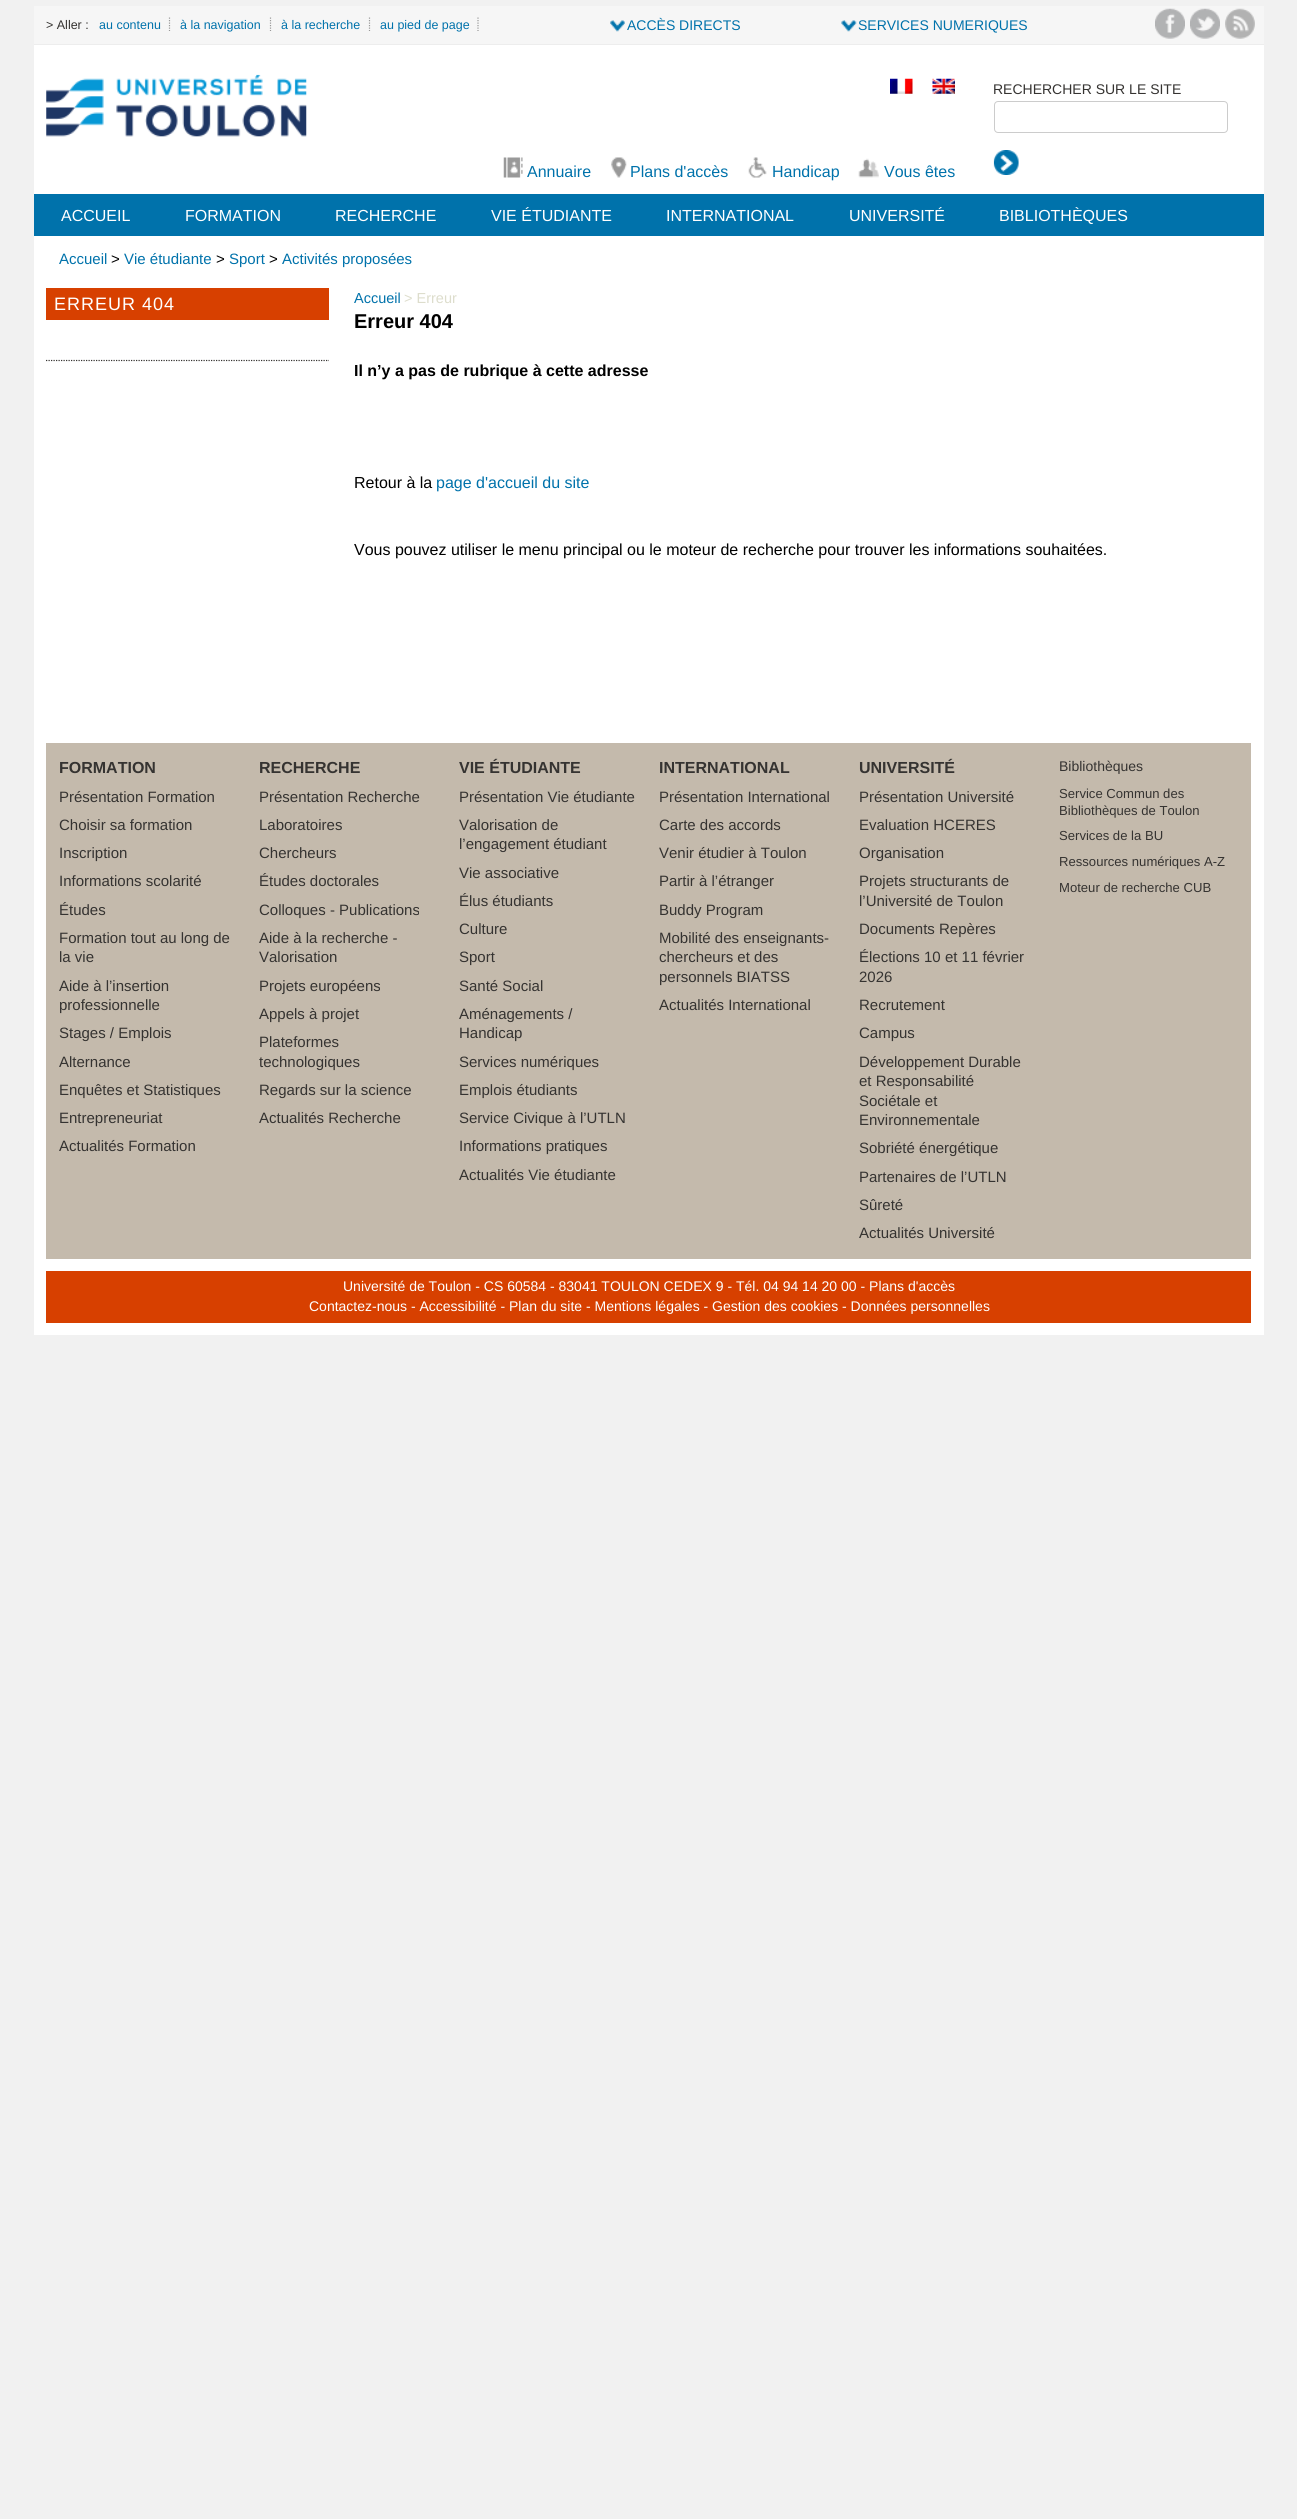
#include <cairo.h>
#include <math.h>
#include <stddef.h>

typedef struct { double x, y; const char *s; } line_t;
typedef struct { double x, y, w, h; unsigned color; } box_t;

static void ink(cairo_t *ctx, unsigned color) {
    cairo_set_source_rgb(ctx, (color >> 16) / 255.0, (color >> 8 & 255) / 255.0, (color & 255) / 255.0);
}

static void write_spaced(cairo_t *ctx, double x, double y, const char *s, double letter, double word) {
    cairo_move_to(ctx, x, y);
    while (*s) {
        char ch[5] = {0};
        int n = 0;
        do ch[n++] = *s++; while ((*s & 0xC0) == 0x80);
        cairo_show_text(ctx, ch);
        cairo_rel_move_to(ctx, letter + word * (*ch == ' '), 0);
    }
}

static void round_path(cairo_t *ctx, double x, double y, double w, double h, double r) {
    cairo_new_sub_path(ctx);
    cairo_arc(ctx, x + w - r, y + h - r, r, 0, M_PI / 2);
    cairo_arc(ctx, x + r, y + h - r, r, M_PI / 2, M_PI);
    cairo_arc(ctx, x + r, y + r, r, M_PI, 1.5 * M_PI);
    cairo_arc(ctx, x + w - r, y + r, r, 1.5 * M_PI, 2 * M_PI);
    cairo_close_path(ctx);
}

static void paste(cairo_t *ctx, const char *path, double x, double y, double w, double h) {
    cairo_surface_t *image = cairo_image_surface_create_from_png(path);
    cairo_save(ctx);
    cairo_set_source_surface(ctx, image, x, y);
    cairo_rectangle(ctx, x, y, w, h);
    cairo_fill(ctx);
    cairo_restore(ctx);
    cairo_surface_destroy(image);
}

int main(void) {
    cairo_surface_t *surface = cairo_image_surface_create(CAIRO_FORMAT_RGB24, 1297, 2519);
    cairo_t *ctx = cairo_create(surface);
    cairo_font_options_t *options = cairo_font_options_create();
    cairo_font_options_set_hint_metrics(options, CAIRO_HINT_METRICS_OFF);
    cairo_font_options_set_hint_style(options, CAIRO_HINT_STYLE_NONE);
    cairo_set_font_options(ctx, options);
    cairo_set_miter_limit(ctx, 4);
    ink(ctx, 0xF1F1F1);
    cairo_paint(ctx);
    {
        static const box_t items[] = {
            {34, 45, 1230, 1290, 0xFFFFFF},
            {34, 6, 1230, 38, 0xF6F6F6},
            {34, 44, 1230, 1, 0xEDEDED},
        };
        for (size_t i = 0; i < sizeof items / sizeof *items; i++) {
            ink(ctx, items[i].color);
            cairo_rectangle(ctx, items[i].x, items[i].y, items[i].w, items[i].h);
            cairo_fill(ctx);
        }
    }
    cairo_select_font_face(ctx, "Liberation Sans", CAIRO_FONT_SLANT_NORMAL, CAIRO_FONT_WEIGHT_NORMAL);
    cairo_set_font_size(ctx, 12.5);
    ink(ctx, 0x353331);
    cairo_move_to(ctx, 46, 29);
    cairo_show_text(ctx, "> Aller :");
    ink(ctx, 0x0072AB);
    cairo_move_to(ctx, 99, 29);
    cairo_show_text(ctx, "au contenu");
    cairo_new_path(ctx);
    cairo_move_to(ctx, 169.5, 17.5);
    cairo_line_to(ctx, 169.5, 31);
    ink(ctx, 0x999999);
    cairo_set_line_width(ctx, 1.2);
    cairo_set_dash(ctx, (double[]){1.25, 1.25}, 2, 0);
    cairo_stroke(ctx);
    ink(ctx, 0x0072AB);
    cairo_move_to(ctx, 180, 29);
    cairo_show_text(ctx, "à la navigation");
    cairo_new_path(ctx);
    cairo_move_to(ctx, 270.5, 17.5);
    cairo_line_to(ctx, 270.5, 31);
    ink(ctx, 0x999999);
    cairo_stroke(ctx);
    ink(ctx, 0x0072AB);
    cairo_move_to(ctx, 281, 29);
    cairo_show_text(ctx, "à la recherche");
    cairo_new_path(ctx);
    cairo_move_to(ctx, 369.5, 17.5);
    cairo_line_to(ctx, 369.5, 31);
    ink(ctx, 0x999999);
    cairo_stroke(ctx);
    ink(ctx, 0x0072AB);
    cairo_move_to(ctx, 380, 29);
    cairo_show_text(ctx, "au pied de page");
    cairo_new_path(ctx);
    cairo_move_to(ctx, 478, 17.5);
    cairo_line_to(ctx, 478, 31);
    ink(ctx, 0x999999);
    cairo_stroke(ctx);
    paste(ctx, "media/1.png", 610, 20, 15, 12);
    cairo_set_font_size(ctx, 14);
    ink(ctx, 0x0072AB);
    cairo_move_to(ctx, 627, 30);
    cairo_show_text(ctx, "ACCÈS DIRECTS");
    paste(ctx, "media/2.png", 841, 20, 16, 12);
    cairo_move_to(ctx, 858, 30);
    cairo_show_text(ctx, "SERVICES NUMERIQUES");
    paste(ctx, "media/3.png", 1155, 8, 30, 31);
    paste(ctx, "media/4.png", 1190, 8, 30, 31);
    paste(ctx, "media/5.png", 1225, 8, 30, 31);
    ink(ctx, 0x353331);
    cairo_move_to(ctx, 993, 94);
    cairo_show_text(ctx, "RECHERCHER SUR LE SITE");
    round_path(ctx, 994.5, 101.5, 233, 31, 3.5);
    ink(ctx, 0xCCCCCC);
    cairo_set_line_width(ctx, 1);
    cairo_set_dash(ctx, NULL, 0, 0);
    cairo_stroke(ctx);
    paste(ctx, "media/6.png", 993, 150, 26, 25);
    paste(ctx, "media/7.png", 46, 74, 261, 63);
    paste(ctx, "media/8.png", 890, 78, 23, 16);
    paste(ctx, "media/9.png", 932, 78, 23, 16);
    paste(ctx, "media/10.png", 503, 157, 20, 21);
    cairo_set_font_size(ctx, 16);
    ink(ctx, 0x0072AB);
    cairo_move_to(ctx, 527, 177);
    cairo_show_text(ctx, "Annuaire");
    paste(ctx, "media/11.png", 611, 157, 16, 21);
    cairo_move_to(ctx, 630, 177);
    cairo_show_text(ctx, "Plans d'accès");
    paste(ctx, "media/12.png", 748, 157, 19, 21);
    cairo_move_to(ctx, 772, 177);
    cairo_show_text(ctx, "Handicap");
    paste(ctx, "media/13.png", 858, 158, 21, 20);
    cairo_move_to(ctx, 884, 177);
    cairo_show_text(ctx, "Vous êtes");
    cairo_rectangle(ctx, 34, 194, 1230, 42);
    cairo_fill(ctx);
    ink(ctx, 0xFFFFFF);
    {
        static const line_t items[] = {
            {61, 221, "ACCUEIL"},
            {185, 221, "FORMATION"},
            {335, 221, "RECHERCHE"},
            {491, 221, "VIE ÉTUDIANTE"},
            {666, 221, "INTERNATIONAL"},
            {849, 221, "UNIVERSITÉ"},
            {999, 221, "BIBLIOTHÈQUES"},
        };
        for (size_t i = 0; i < sizeof items / sizeof *items; i++) {
            cairo_move_to(ctx, items[i].x, items[i].y);
            cairo_show_text(ctx, items[i].s);
        }
    }
    cairo_set_font_size(ctx, 15);
    ink(ctx, 0x0072AB);
    cairo_move_to(ctx, 59, 264);
    cairo_show_text(ctx, "Accueil");
    ink(ctx, 0x000000);
    cairo_move_to(ctx, 111, 264);
    cairo_show_text(ctx, ">");
    ink(ctx, 0x0072AB);
    cairo_move_to(ctx, 124, 264);
    cairo_show_text(ctx, "Vie étudiante");
    ink(ctx, 0x000000);
    cairo_move_to(ctx, 216, 264);
    cairo_show_text(ctx, ">");
    ink(ctx, 0x0072AB);
    cairo_move_to(ctx, 229, 264);
    cairo_show_text(ctx, "Sport");
    ink(ctx, 0x000000);
    cairo_move_to(ctx, 269, 264);
    cairo_show_text(ctx, ">");
    ink(ctx, 0x0072AB);
    cairo_move_to(ctx, 282, 264);
    cairo_show_text(ctx, "Activités proposées");
    ink(ctx, 0xD74000);
    cairo_rectangle(ctx, 46, 288, 283, 32);
    cairo_fill(ctx);
    cairo_set_font_size(ctx, 18);
    ink(ctx, 0xFFFFFF);
    write_spaced(ctx, 54, 310, "ERREUR 404", 1, 0);
    cairo_new_path(ctx);
    cairo_move_to(ctx, 46, 360.5);
    cairo_line_to(ctx, 329, 360.5);
    ink(ctx, 0x353331);
    cairo_set_line_width(ctx, 1.2);
    cairo_set_dash(ctx, (double[]){1.25, 1.25}, 2, 0);
    cairo_stroke(ctx);
    cairo_set_font_size(ctx, 14.5);
    ink(ctx, 0x0072AB);
    cairo_move_to(ctx, 354, 303);
    cairo_show_text(ctx, "Accueil");
    ink(ctx, 0xDDDDCC);
    cairo_move_to(ctx, 404, 303);
    cairo_show_text(ctx, "> Erreur");
    cairo_select_font_face(ctx, "Liberation Sans", CAIRO_FONT_SLANT_NORMAL, CAIRO_FONT_WEIGHT_BOLD);
    cairo_set_font_size(ctx, 20);
    ink(ctx, 0x000000);
    cairo_move_to(ctx, 354, 328);
    cairo_show_text(ctx, "Erreur 404");
    cairo_set_font_size(ctx, 16);
    cairo_move_to(ctx, 354, 376);
    cairo_show_text(ctx, "Il n’y a pas de rubrique à cette adresse");
    cairo_select_font_face(ctx, "Liberation Sans", CAIRO_FONT_SLANT_NORMAL, CAIRO_FONT_WEIGHT_NORMAL);
    cairo_move_to(ctx, 354, 488);
    cairo_show_text(ctx, "Retour à la");
    ink(ctx, 0x0072AB);
    cairo_move_to(ctx, 436, 488);
    cairo_show_text(ctx, "page d'accueil du site");
    ink(ctx, 0x000000);
    cairo_move_to(ctx, 354, 555);
    cairo_show_text(ctx, "Vous pouvez utiliser le menu principal ou le moteur de recherche pour trouver les informations souhaitées.");
    ink(ctx, 0xC4BAAC);
    cairo_rectangle(ctx, 46, 743, 1205, 516);
    cairo_fill(ctx);
    cairo_select_font_face(ctx, "Liberation Sans", CAIRO_FONT_SLANT_NORMAL, CAIRO_FONT_WEIGHT_BOLD);
    ink(ctx, 0x353331);
    cairo_move_to(ctx, 59, 773);
    cairo_show_text(ctx, "FORMATION");
    cairo_select_font_face(ctx, "Liberation Sans", CAIRO_FONT_SLANT_NORMAL, CAIRO_FONT_WEIGHT_NORMAL);
    cairo_set_font_size(ctx, 15);
    {
        static const line_t items[] = {
            {59, 802, "Présentation Formation"},
            {59, 830, "Choisir sa formation"},
            {59, 858, "Inscription"},
            {59, 886, "Informations scolarité"},
            {59, 915, "Études"},
            {59, 943, "Formation tout au long de"},
            {59, 962, "la vie"},
            {59, 991, "Aide à l’insertion"},
            {59, 1010, "professionnelle"},
            {59, 1038, "Stages / Emplois"},
            {59, 1067, "Alternance"},
            {59, 1095, "Enquêtes et Statistiques"},
            {59, 1123, "Entrepreneuriat"},
            {59, 1151, "Actualités Formation"},
        };
        for (size_t i = 0; i < sizeof items / sizeof *items; i++) {
            cairo_move_to(ctx, items[i].x, items[i].y);
            cairo_show_text(ctx, items[i].s);
        }
    }
    cairo_select_font_face(ctx, "Liberation Sans", CAIRO_FONT_SLANT_NORMAL, CAIRO_FONT_WEIGHT_BOLD);
    cairo_set_font_size(ctx, 16);
    cairo_move_to(ctx, 259, 773);
    cairo_show_text(ctx, "RECHERCHE");
    cairo_select_font_face(ctx, "Liberation Sans", CAIRO_FONT_SLANT_NORMAL, CAIRO_FONT_WEIGHT_NORMAL);
    cairo_set_font_size(ctx, 15);
    {
        static const line_t items[] = {
            {259, 802, "Présentation Recherche"},
            {259, 830, "Laboratoires"},
            {259, 858, "Chercheurs"},
            {259, 886, "Études doctorales"},
            {259, 915, "Colloques - Publications"},
            {259, 943, "Aide à la recherche -"},
            {259, 962, "Valorisation"},
            {259, 991, "Projets européens"},
            {259, 1019, "Appels à projet"},
            {259, 1047, "Plateformes"},
            {259, 1067, "technologiques"},
            {259, 1095, "Regards sur la science"},
            {259, 1123, "Actualités Recherche"},
        };
        for (size_t i = 0; i < sizeof items / sizeof *items; i++) {
            cairo_move_to(ctx, items[i].x, items[i].y);
            cairo_show_text(ctx, items[i].s);
        }
    }
    cairo_select_font_face(ctx, "Liberation Sans", CAIRO_FONT_SLANT_NORMAL, CAIRO_FONT_WEIGHT_BOLD);
    cairo_set_font_size(ctx, 16);
    cairo_move_to(ctx, 459, 773);
    cairo_show_text(ctx, "VIE ÉTUDIANTE");
    cairo_select_font_face(ctx, "Liberation Sans", CAIRO_FONT_SLANT_NORMAL, CAIRO_FONT_WEIGHT_NORMAL);
    cairo_set_font_size(ctx, 15);
    {
        static const line_t items[] = {
            {459, 802, "Présentation Vie étudiante"},
            {459, 830, "Valorisation de"},
            {459, 849, "l’engagement étudiant"},
            {459, 878, "Vie associative"},
            {459, 906, "Élus étudiants"},
            {459, 934, "Culture"},
            {459, 962, "Sport"},
            {459, 991, "Santé Social"},
            {459, 1019, "Aménagements /"},
            {459, 1038, "Handicap"},
            {459, 1067, "Services numériques"},
            {459, 1095, "Emplois étudiants"},
            {459, 1123, "Service Civique à l’UTLN"},
            {459, 1151, "Informations pratiques"},
            {459, 1180, "Actualités Vie étudiante"},
        };
        for (size_t i = 0; i < sizeof items / sizeof *items; i++) {
            cairo_move_to(ctx, items[i].x, items[i].y);
            cairo_show_text(ctx, items[i].s);
        }
    }
    cairo_select_font_face(ctx, "Liberation Sans", CAIRO_FONT_SLANT_NORMAL, CAIRO_FONT_WEIGHT_BOLD);
    cairo_set_font_size(ctx, 16);
    cairo_move_to(ctx, 659, 773);
    cairo_show_text(ctx, "INTERNATIONAL");
    cairo_select_font_face(ctx, "Liberation Sans", CAIRO_FONT_SLANT_NORMAL, CAIRO_FONT_WEIGHT_NORMAL);
    cairo_set_font_size(ctx, 15);
    {
        static const line_t items[] = {
            {659, 802, "Présentation International"},
            {659, 830, "Carte des accords"},
            {659, 858, "Venir étudier à Toulon"},
            {659, 886, "Partir à l’étranger"},
            {659, 915, "Buddy Program"},
            {659, 943, "Mobilité des enseignants-"},
            {659, 962, "chercheurs et des"},
            {659, 982, "personnels BIATSS"},
            {659, 1010, "Actualités International"},
        };
        for (size_t i = 0; i < sizeof items / sizeof *items; i++) {
            cairo_move_to(ctx, items[i].x, items[i].y);
            cairo_show_text(ctx, items[i].s);
        }
    }
    cairo_select_font_face(ctx, "Liberation Sans", CAIRO_FONT_SLANT_NORMAL, CAIRO_FONT_WEIGHT_BOLD);
    cairo_set_font_size(ctx, 16);
    cairo_move_to(ctx, 859, 773);
    cairo_show_text(ctx, "UNIVERSITÉ");
    cairo_select_font_face(ctx, "Liberation Sans", CAIRO_FONT_SLANT_NORMAL, CAIRO_FONT_WEIGHT_NORMAL);
    cairo_set_font_size(ctx, 15);
    {
        static const line_t items[] = {
            {859, 802, "Présentation Université"},
            {859, 830, "Evaluation HCERES"},
            {859, 858, "Organisation"},
            {859, 886, "Projets structurants de"},
            {859, 906, "l’Université de Toulon"},
            {859, 934, "Documents Repères"},
            {859, 962, "Élections 10 et 11 février"},
            {859, 982, "2026"},
            {859, 1010, "Recrutement"},
            {859, 1038, "Campus"},
            {859, 1067, "Développement Durable"},
            {859, 1086, "et Responsabilité"},
            {859, 1106, "Sociétale et"},
            {859, 1125, "Environnementale"},
            {859, 1153, "Sobriété énergétique"},
            {859, 1182, "Partenaires de l’UTLN"},
            {859, 1210, "Sûreté"},
            {859, 1238, "Actualités Université"},
        };
        for (size_t i = 0; i < sizeof items / sizeof *items; i++) {
            cairo_move_to(ctx, items[i].x, items[i].y);
            cairo_show_text(ctx, items[i].s);
        }
    }
    cairo_set_font_size(ctx, 14);
    cairo_move_to(ctx, 1059, 771);
    cairo_show_text(ctx, "Bibliothèques");
    cairo_set_font_size(ctx, 13.1);
    {
        static const line_t items[] = {
            {1059, 798, "Service Commun des"},
            {1059, 815, "Bibliothèques de Toulon"},
            {1059, 840, "Services de la BU"},
            {1059, 866, "Ressources numériques A-Z"},
            {1059, 892, "Moteur de recherche CUB"},
        };
        for (size_t i = 0; i < sizeof items / sizeof *items; i++) {
            cairo_move_to(ctx, items[i].x, items[i].y);
            cairo_show_text(ctx, items[i].s);
        }
    }
    ink(ctx, 0xD74000);
    cairo_rectangle(ctx, 46, 1271, 1205, 52);
    cairo_fill(ctx);
    cairo_set_font_size(ctx, 14);
    ink(ctx, 0xFFFFFF);
    cairo_move_to(ctx, 343, 1291);
    cairo_show_text(ctx, "Université de Toulon - CS 60584 - 83041 TOULON CEDEX 9 - Tél. 04 94 14 20 00 - Plans d'accès");
    cairo_move_to(ctx, 309, 1311);
    cairo_show_text(ctx, "Contactez-nous - Accessibilité - Plan du site - Mentions légales - Gestion des cookies - Données personnelles");
    cairo_surface_write_to_png(surface, "image.png");
    cairo_font_options_destroy(options);
    cairo_destroy(ctx);
    cairo_surface_destroy(surface);
    return 0;
}
